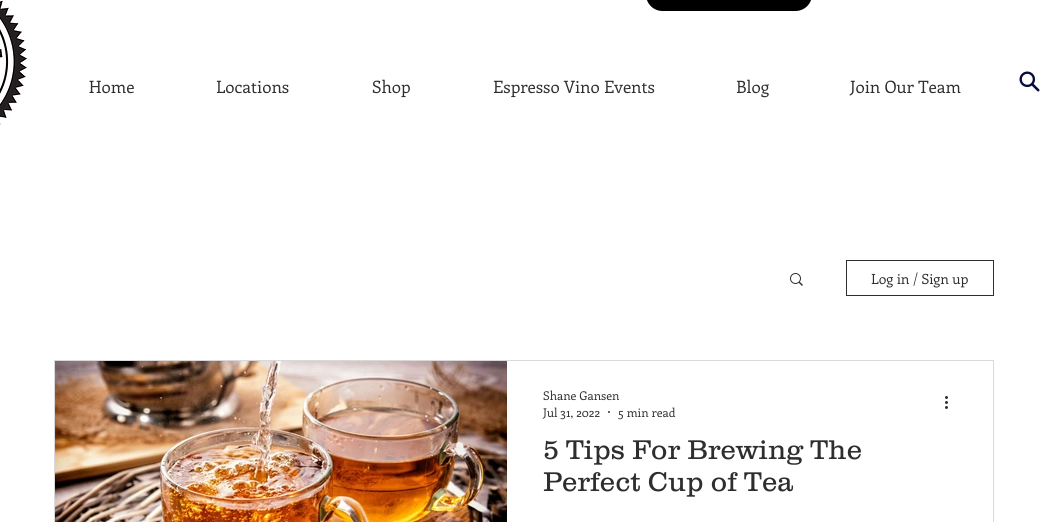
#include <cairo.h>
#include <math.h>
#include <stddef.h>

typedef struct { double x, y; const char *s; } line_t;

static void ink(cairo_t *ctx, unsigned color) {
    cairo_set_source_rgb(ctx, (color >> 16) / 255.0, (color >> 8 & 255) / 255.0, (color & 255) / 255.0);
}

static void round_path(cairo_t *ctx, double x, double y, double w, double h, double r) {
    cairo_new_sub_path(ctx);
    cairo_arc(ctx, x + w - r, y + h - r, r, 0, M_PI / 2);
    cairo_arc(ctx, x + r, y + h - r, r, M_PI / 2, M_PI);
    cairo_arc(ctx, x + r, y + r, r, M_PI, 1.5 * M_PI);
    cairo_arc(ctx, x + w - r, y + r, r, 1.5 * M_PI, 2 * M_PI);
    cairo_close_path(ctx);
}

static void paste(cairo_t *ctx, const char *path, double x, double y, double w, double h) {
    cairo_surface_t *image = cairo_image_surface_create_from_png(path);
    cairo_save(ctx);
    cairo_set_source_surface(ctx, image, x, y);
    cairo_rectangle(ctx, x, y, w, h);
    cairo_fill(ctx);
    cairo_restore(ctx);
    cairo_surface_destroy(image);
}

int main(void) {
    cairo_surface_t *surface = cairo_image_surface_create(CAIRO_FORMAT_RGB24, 1047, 522);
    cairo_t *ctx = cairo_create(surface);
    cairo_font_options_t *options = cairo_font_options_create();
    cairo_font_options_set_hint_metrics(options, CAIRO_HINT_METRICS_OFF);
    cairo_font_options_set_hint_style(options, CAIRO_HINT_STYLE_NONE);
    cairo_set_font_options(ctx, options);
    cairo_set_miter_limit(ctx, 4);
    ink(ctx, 0xFFFFFF);
    cairo_paint(ctx);
    ink(ctx, 0x000000);
    round_path(ctx, 646, -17, 166, 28, 16.5);
    cairo_fill(ctx);
    paste(ctx, "media/1.png", 0, 0, 27, 125);
    cairo_select_font_face(ctx, "Enriqueta", CAIRO_FONT_SLANT_NORMAL, CAIRO_FONT_WEIGHT_NORMAL);
    cairo_set_font_size(ctx, 17);
    ink(ctx, 0x2F2E2E);
    {
        static const line_t items[] = {
            {89, 93, "Home"},
            {216, 93, "Locations"},
            {372, 93, "Shop"},
            {493, 93, "Espresso Vino Events"},
            {736, 93, "Blog"},
            {850, 93, "Join Our Team"},
        };
        for (size_t i = 0; i < sizeof items / sizeof *items; i++) {
            cairo_move_to(ctx, items[i].x, items[i].y);
            cairo_show_text(ctx, items[i].s);
        }
    }
    paste(ctx, "media/2.png", 1019, 71, 21, 21);
    paste(ctx, "media/3.png", 790, 273, 13, 13);
    cairo_rectangle(ctx, 846.5, 260.5, 147, 35);
    cairo_set_line_width(ctx, 1);
    cairo_stroke(ctx);
    cairo_set_font_size(ctx, 14);
    cairo_move_to(ctx, 871, 284);
    cairo_show_text(ctx, "Log in / Sign up");
    cairo_rectangle(ctx, 54.5, 360.5, 939, 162);
    ink(ctx, 0xDAD8D9);
    cairo_stroke(ctx);
    paste(ctx, "media/4.png", 55, 361, 452, 161);
    cairo_set_font_size(ctx, 12);
    ink(ctx, 0x2F2E2E);
    cairo_move_to(ctx, 543, 400);
    cairo_show_text(ctx, "Shane Gansen");
    cairo_move_to(ctx, 543, 417);
    cairo_show_text(ctx, "Jul 31, 2022");
    cairo_new_path(ctx);
    cairo_arc(ctx, 609, 412, 1, 0, 2 * M_PI);
    cairo_fill(ctx);
    cairo_move_to(ctx, 618, 417);
    cairo_show_text(ctx, "5 min read");
    paste(ctx, "media/5.png", 945, 396, 3, 13);
    cairo_select_font_face(ctx, "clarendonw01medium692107 Light", CAIRO_FONT_SLANT_NORMAL, CAIRO_FONT_WEIGHT_NORMAL);
    cairo_set_font_size(ctx, 28);
    cairo_move_to(ctx, 543, 459);
    cairo_show_text(ctx, "5 Tips For Brewing The");
    cairo_move_to(ctx, 543, 491);
    cairo_show_text(ctx, "Perfect Cup of Tea");
    cairo_surface_write_to_png(surface, "image.png");
    cairo_font_options_destroy(options);
    cairo_destroy(ctx);
    cairo_surface_destroy(surface);
    return 0;
}
